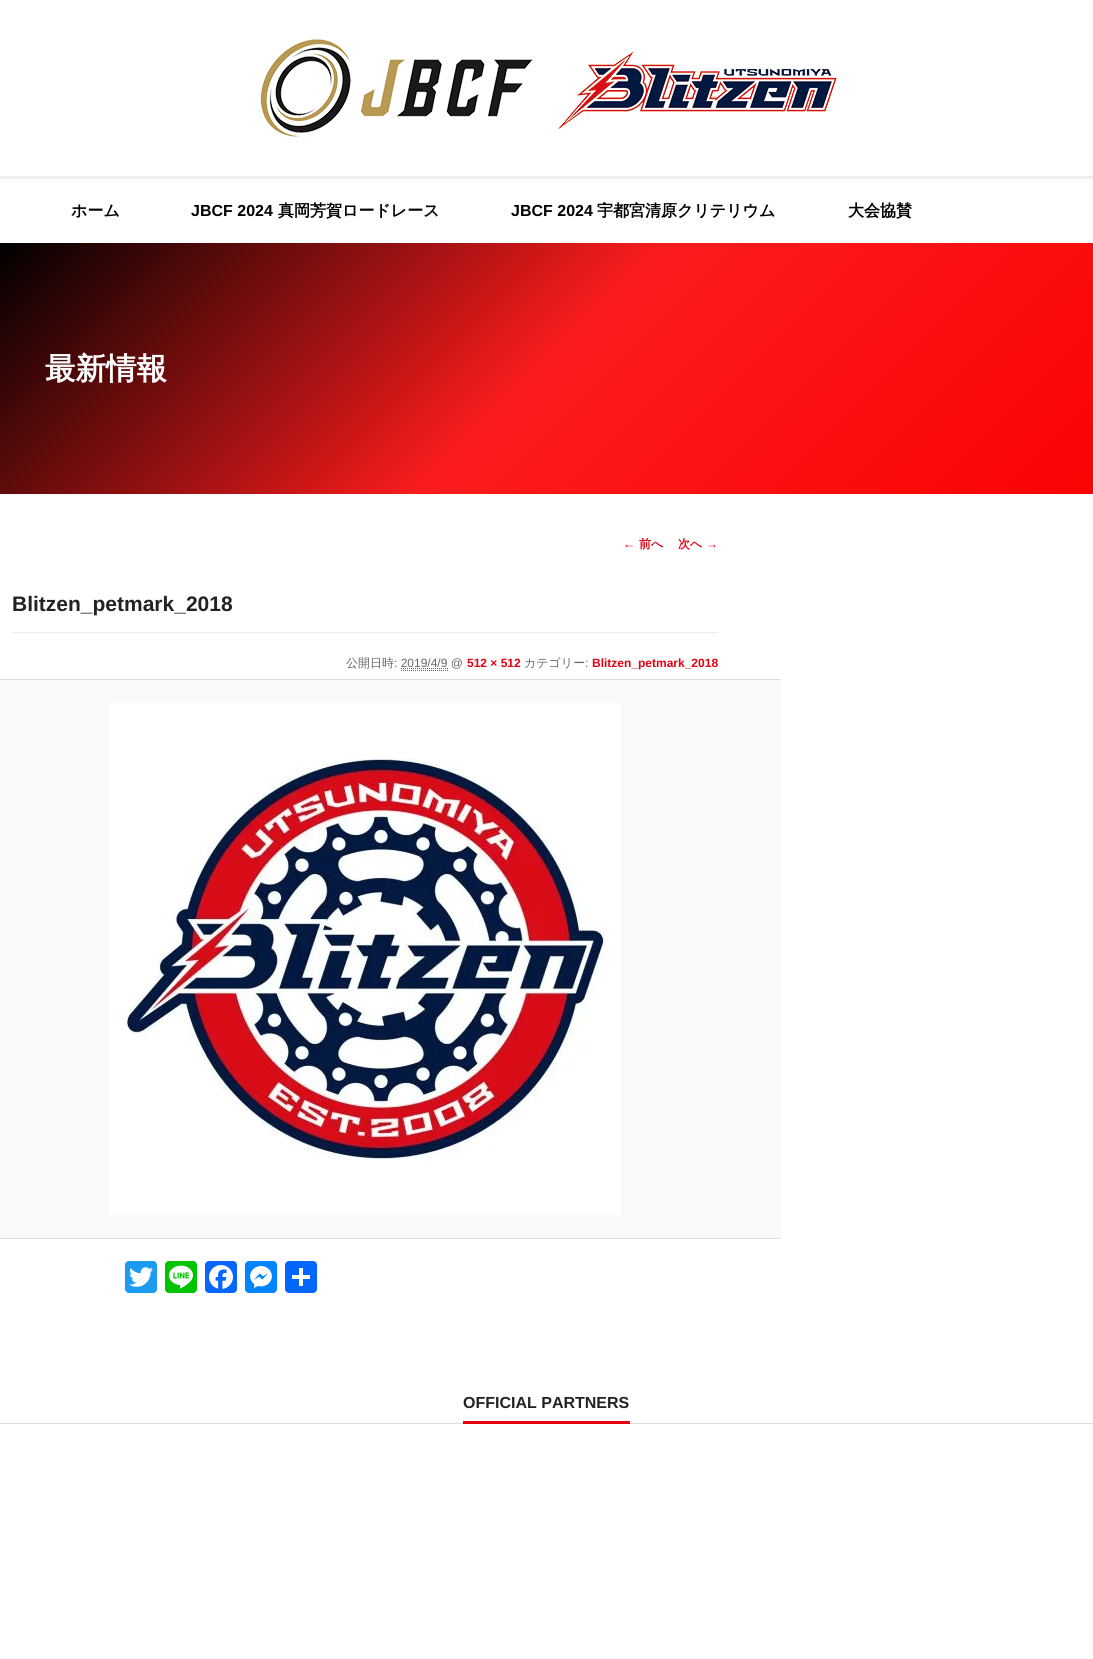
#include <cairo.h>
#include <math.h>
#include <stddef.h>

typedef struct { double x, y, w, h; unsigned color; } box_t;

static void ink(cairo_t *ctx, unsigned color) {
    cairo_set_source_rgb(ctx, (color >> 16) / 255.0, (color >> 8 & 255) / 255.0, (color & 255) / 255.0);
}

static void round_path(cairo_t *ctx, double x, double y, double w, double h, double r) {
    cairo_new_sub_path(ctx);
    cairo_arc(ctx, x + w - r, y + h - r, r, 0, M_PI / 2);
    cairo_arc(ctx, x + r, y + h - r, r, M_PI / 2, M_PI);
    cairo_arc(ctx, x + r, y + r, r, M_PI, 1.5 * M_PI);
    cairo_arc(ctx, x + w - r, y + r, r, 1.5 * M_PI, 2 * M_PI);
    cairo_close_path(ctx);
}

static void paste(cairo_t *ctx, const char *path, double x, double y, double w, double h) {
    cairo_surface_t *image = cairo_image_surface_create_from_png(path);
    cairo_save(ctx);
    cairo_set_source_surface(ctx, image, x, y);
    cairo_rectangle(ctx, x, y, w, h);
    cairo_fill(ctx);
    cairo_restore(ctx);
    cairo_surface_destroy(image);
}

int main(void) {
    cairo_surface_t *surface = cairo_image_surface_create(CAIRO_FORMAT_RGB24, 1093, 1659);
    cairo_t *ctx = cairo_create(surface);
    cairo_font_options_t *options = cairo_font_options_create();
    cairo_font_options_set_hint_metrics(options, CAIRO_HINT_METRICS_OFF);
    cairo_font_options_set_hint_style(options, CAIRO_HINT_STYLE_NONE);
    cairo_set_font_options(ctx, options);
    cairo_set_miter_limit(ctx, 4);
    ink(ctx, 0xFFFFFF);
    cairo_paint(ctx);
    paste(ctx, "media/1.png", 260, 39, 273, 98);
    paste(ctx, "media/2.png", 557, 51, 280, 79);
    ink(ctx, 0xEFEFEF);
    cairo_rectangle(ctx, 0, 176, 1093, 3);
    cairo_fill(ctx);
    cairo_select_font_face(ctx, "WenQuanYi Zen Hei", CAIRO_FONT_SLANT_NORMAL, CAIRO_FONT_WEIGHT_BOLD);
    cairo_set_font_size(ctx, 16);
    ink(ctx, 0x000000);
    cairo_move_to(ctx, 71, 216);
    cairo_show_text(ctx, "ホーム");
    cairo_select_font_face(ctx, "Liberation Sans", CAIRO_FONT_SLANT_NORMAL, CAIRO_FONT_WEIGHT_BOLD);
    cairo_move_to(ctx, 191, 216);
    cairo_show_text(ctx, "JBCF 2024");
    cairo_select_font_face(ctx, "WenQuanYi Zen Hei", CAIRO_FONT_SLANT_NORMAL, CAIRO_FONT_WEIGHT_BOLD);
    cairo_move_to(ctx, 278, 216);
    cairo_show_text(ctx, "真岡芳賀ロードレース");
    cairo_select_font_face(ctx, "Liberation Sans", CAIRO_FONT_SLANT_NORMAL, CAIRO_FONT_WEIGHT_BOLD);
    cairo_move_to(ctx, 511, 216);
    cairo_show_text(ctx, "JBCF 2024");
    cairo_select_font_face(ctx, "WenQuanYi Zen Hei", CAIRO_FONT_SLANT_NORMAL, CAIRO_FONT_WEIGHT_BOLD);
    cairo_move_to(ctx, 597, 216);
    cairo_show_text(ctx, "宇都宮清原クリテリウム");
    cairo_move_to(ctx, 848, 216);
    cairo_show_text(ctx, "大会協賛");
    paste(ctx, "media/3.png", 0, 243, 1093, 251);
    cairo_set_font_size(ctx, 30.5);
    ink(ctx, 0xFFFFFF);
    cairo_move_to(ctx, 45, 379);
    cairo_show_text(ctx, "最新情報");
    cairo_select_font_face(ctx, "Liberation Sans", CAIRO_FONT_SLANT_NORMAL, CAIRO_FONT_WEIGHT_BOLD);
    cairo_set_font_size(ctx, 12);
    ink(ctx, 0xE50012);
    cairo_move_to(ctx, 623, 548);
    cairo_show_text(ctx, "←");
    cairo_select_font_face(ctx, "WenQuanYi Zen Hei", CAIRO_FONT_SLANT_NORMAL, CAIRO_FONT_WEIGHT_BOLD);
    cairo_move_to(ctx, 639, 548);
    cairo_show_text(ctx, "前へ");
    cairo_move_to(ctx, 678, 548);
    cairo_show_text(ctx, "次へ");
    cairo_select_font_face(ctx, "Liberation Sans", CAIRO_FONT_SLANT_NORMAL, CAIRO_FONT_WEIGHT_BOLD);
    cairo_move_to(ctx, 706, 548);
    cairo_show_text(ctx, "→");
    ink(ctx, 0xEEEEEE);
    cairo_rectangle(ctx, 12, 632, 706, 1);
    cairo_fill(ctx);
    cairo_set_font_size(ctx, 21);
    ink(ctx, 0x222222);
    cairo_move_to(ctx, 12, 611);
    cairo_show_text(ctx, "Blitzen_petmark_2018");
    cairo_select_font_face(ctx, "WenQuanYi Zen Hei Medium", CAIRO_FONT_SLANT_NORMAL, CAIRO_FONT_WEIGHT_NORMAL);
    cairo_set_font_size(ctx, 12);
    ink(ctx, 0x666666);
    cairo_move_to(ctx, 346, 667);
    cairo_show_text(ctx, "公開日時");
    cairo_select_font_face(ctx, "Liberation Sans", CAIRO_FONT_SLANT_NORMAL, CAIRO_FONT_WEIGHT_NORMAL);
    cairo_move_to(ctx, 394, 667);
    cairo_show_text(ctx, ": 2019/4/9 @");
    cairo_select_font_face(ctx, "Liberation Sans", CAIRO_FONT_SLANT_NORMAL, CAIRO_FONT_WEIGHT_BOLD);
    ink(ctx, 0xE50012);
    cairo_move_to(ctx, 467, 667);
    cairo_show_text(ctx, "512 × 512");
    cairo_select_font_face(ctx, "WenQuanYi Zen Hei Medium", CAIRO_FONT_SLANT_NORMAL, CAIRO_FONT_WEIGHT_NORMAL);
    ink(ctx, 0x666666);
    cairo_move_to(ctx, 524, 667);
    cairo_show_text(ctx, "カテゴリー");
    cairo_select_font_face(ctx, "Liberation Sans", CAIRO_FONT_SLANT_NORMAL, CAIRO_FONT_WEIGHT_NORMAL);
    cairo_move_to(ctx, 585, 667);
    cairo_show_text(ctx, ":");
    cairo_select_font_face(ctx, "Liberation Sans", CAIRO_FONT_SLANT_NORMAL, CAIRO_FONT_WEIGHT_BOLD);
    ink(ctx, 0xE50012);
    cairo_move_to(ctx, 592, 667);
    cairo_show_text(ctx, "Blitzen_petmark_2018");
    cairo_new_path(ctx);
    cairo_move_to(ctx, 401, 670.5);
    cairo_line_to(ctx, 448, 670.5);
    cairo_move_to(ctx, 401, 668.5);
    cairo_line_to(ctx, 448, 668.5);
    ink(ctx, 0x666666);
    cairo_set_line_width(ctx, 1);
    cairo_set_dash(ctx, (double[]){1, 1}, 2, 0);
    cairo_stroke(ctx);
    {
        static const box_t items[] = {
            {0, 680, 781, 558, 0xF9F9F9},
            {0, 679, 781, 1, 0xDDDDDD},
            {0, 1238, 781, 1, 0xDDDDDD},
        };
        for (size_t i = 0; i < sizeof items / sizeof *items; i++) {
            ink(ctx, items[i].color);
            cairo_rectangle(ctx, items[i].x, items[i].y, items[i].w, items[i].h);
            cairo_fill(ctx);
        }
    }
    paste(ctx, "media/4.png", 109, 703, 512, 512);
    ink(ctx, 0x1D9BF0);
    round_path(ctx, 125, 1261, 32, 32, 4);
    cairo_fill(ctx);
    paste(ctx, "media/5.png", 129, 1267, 24, 20);
    ink(ctx, 0x00C300);
    round_path(ctx, 165, 1261, 32, 32, 4);
    cairo_fill(ctx);
    paste(ctx, "media/6.png", 169, 1265, 24, 24);
    ink(ctx, 0x0866FF);
    round_path(ctx, 205, 1261, 32, 32, 4);
    cairo_fill(ctx);
    paste(ctx, "media/7.png", 209, 1265, 24, 24);
    ink(ctx, 0x0084FF);
    round_path(ctx, 245, 1261, 32, 32, 4);
    cairo_fill(ctx);
    paste(ctx, "media/8.png", 250, 1266, 22, 22);
    ink(ctx, 0x0166FF);
    round_path(ctx, 285, 1261, 32, 32, 4);
    cairo_fill(ctx);
    {
        static const box_t items[] = {
            {299, 1268, 4, 18, 0xFFFFFF},
            {292, 1275, 18, 4, 0xFFFFFF},
            {0, 1423, 1093, 1, 0xDDDDDD},
            {463, 1421, 167, 3, 0xE50012},
        };
        for (size_t i = 0; i < sizeof items / sizeof *items; i++) {
            ink(ctx, items[i].color);
            cairo_rectangle(ctx, items[i].x, items[i].y, items[i].w, items[i].h);
            cairo_fill(ctx);
        }
    }
    cairo_set_font_size(ctx, 16);
    ink(ctx, 0x222222);
    cairo_move_to(ctx, 463, 1408);
    cairo_show_text(ctx, "OFFICIAL PARTNERS");
    cairo_surface_write_to_png(surface, "image.png");
    cairo_font_options_destroy(options);
    cairo_destroy(ctx);
    cairo_surface_destroy(surface);
    return 0;
}
